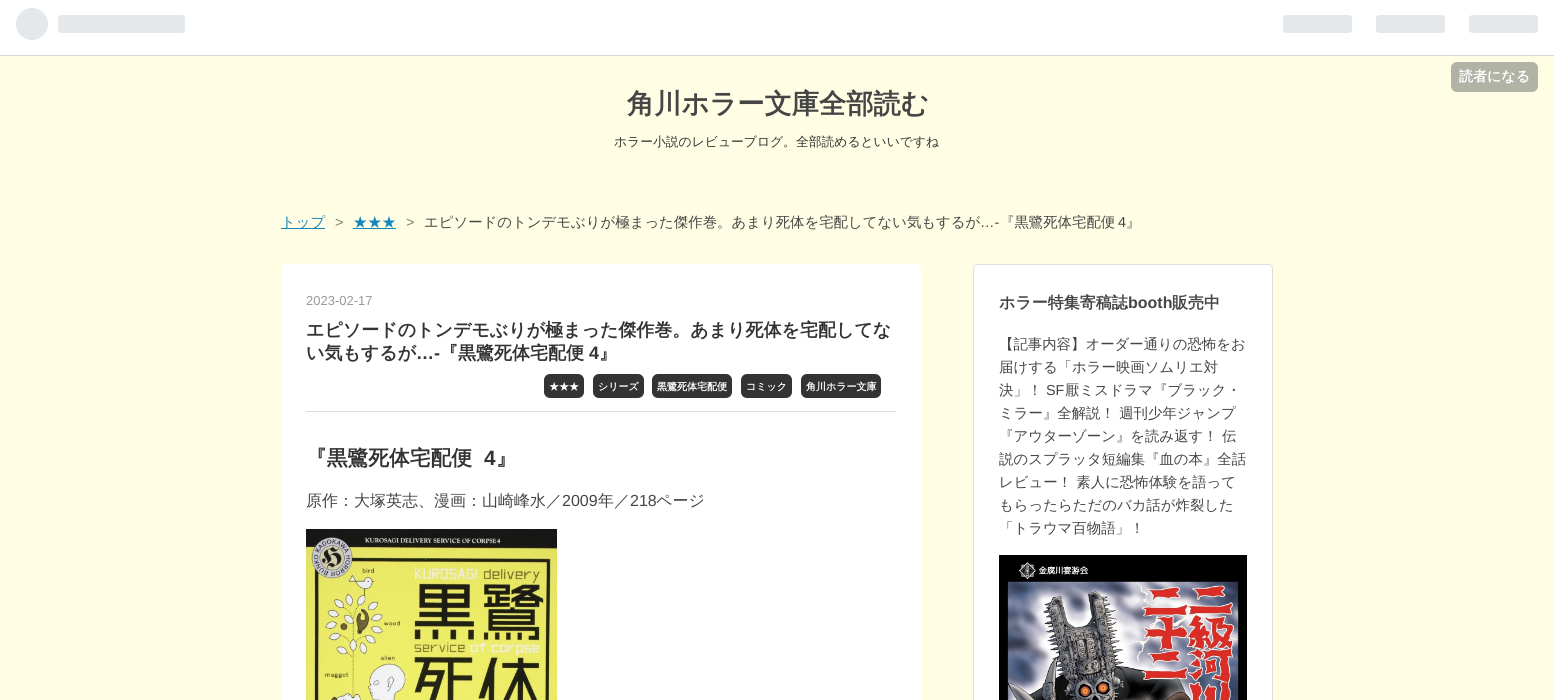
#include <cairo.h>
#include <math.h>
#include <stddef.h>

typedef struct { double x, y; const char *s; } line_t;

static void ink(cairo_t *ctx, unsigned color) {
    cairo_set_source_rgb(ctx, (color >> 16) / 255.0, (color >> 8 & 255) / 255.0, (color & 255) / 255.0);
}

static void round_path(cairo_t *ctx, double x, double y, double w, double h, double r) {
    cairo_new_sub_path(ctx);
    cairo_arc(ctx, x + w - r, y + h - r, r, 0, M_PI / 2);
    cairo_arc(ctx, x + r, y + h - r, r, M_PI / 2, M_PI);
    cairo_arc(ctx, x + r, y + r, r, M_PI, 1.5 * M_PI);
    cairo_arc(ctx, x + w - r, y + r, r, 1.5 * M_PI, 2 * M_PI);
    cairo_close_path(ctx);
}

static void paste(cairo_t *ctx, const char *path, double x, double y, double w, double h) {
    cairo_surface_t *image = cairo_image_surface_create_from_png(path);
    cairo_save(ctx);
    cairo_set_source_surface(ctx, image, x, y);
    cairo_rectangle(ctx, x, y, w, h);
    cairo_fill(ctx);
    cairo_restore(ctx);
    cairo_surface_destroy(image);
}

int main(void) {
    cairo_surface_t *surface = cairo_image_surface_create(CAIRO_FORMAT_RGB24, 1554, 700);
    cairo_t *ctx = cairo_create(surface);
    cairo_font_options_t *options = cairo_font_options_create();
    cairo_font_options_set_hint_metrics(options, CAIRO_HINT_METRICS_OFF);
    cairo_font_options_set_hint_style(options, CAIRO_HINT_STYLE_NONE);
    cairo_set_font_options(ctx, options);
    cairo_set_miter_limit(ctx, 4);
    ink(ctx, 0xFFFEE4);
    cairo_paint(ctx);
    ink(ctx, 0xFFFFFF);
    cairo_rectangle(ctx, 0, 0, 1554, 55);
    cairo_fill(ctx);
    ink(ctx, 0xD2D8DD);
    cairo_rectangle(ctx, 0, 55, 1554, 1);
    cairo_fill(ctx);
    paste(ctx, "media/1.png", 16, 8, 169, 32);
    paste(ctx, "media/2.png", 1283, 15, 255, 18);
    ink(ctx, 0xB1B3A4);
    round_path(ctx, 1451, 62, 87, 30, 6);
    cairo_fill(ctx);
    cairo_select_font_face(ctx, "WenQuanYi Zen Hei", CAIRO_FONT_SLANT_NORMAL, CAIRO_FONT_WEIGHT_BOLD);
    cairo_set_font_size(ctx, 14);
    ink(ctx, 0xFFFFFF);
    cairo_move_to(ctx, 1459, 81);
    cairo_show_text(ctx, "読者になる");
    cairo_set_font_size(ctx, 27.25);
    ink(ctx, 0x454545);
    cairo_move_to(ctx, 627, 113);
    cairo_show_text(ctx, "角川ホラー文庫全部読む");
    cairo_select_font_face(ctx, "WenQuanYi Zen Hei Medium", CAIRO_FONT_SLANT_NORMAL, CAIRO_FONT_WEIGHT_NORMAL);
    cairo_set_font_size(ctx, 12.8);
    ink(ctx, 0x333333);
    cairo_move_to(ctx, 614, 146);
    cairo_show_text(ctx, "ホラー小説のレビューブログ。全部読めるといいですね");
    ink(ctx, 0x1487BD);
    cairo_rectangle(ctx, 281, 228, 44, 1);
    cairo_fill(ctx);
    cairo_set_font_size(ctx, 14.4);
    cairo_move_to(ctx, 281, 227);
    cairo_show_text(ctx, "トップ");
    cairo_select_font_face(ctx, "Liberation Sans", CAIRO_FONT_SLANT_NORMAL, CAIRO_FONT_WEIGHT_NORMAL);
    ink(ctx, 0x7D7D75);
    cairo_move_to(ctx, 335, 227);
    cairo_show_text(ctx, ">");
    cairo_select_font_face(ctx, "WenQuanYi Zen Hei Medium", CAIRO_FONT_SLANT_NORMAL, CAIRO_FONT_WEIGHT_NORMAL);
    ink(ctx, 0x1487BD);
    cairo_move_to(ctx, 353, 227);
    cairo_show_text(ctx, "★★★");
    cairo_rectangle(ctx, 353, 228, 43, 1);
    cairo_fill(ctx);
    cairo_select_font_face(ctx, "Liberation Sans", CAIRO_FONT_SLANT_NORMAL, CAIRO_FONT_WEIGHT_NORMAL);
    ink(ctx, 0x7D7D75);
    cairo_move_to(ctx, 406, 227);
    cairo_show_text(ctx, ">");
    cairo_select_font_face(ctx, "WenQuanYi Zen Hei Medium", CAIRO_FONT_SLANT_NORMAL, CAIRO_FONT_WEIGHT_NORMAL);
    ink(ctx, 0x454545);
    cairo_move_to(ctx, 424, 227);
    cairo_show_text(ctx, "エピソードのトンデモぶりが極まった傑作巻。あまり死体を宅配してない気もするが");
    cairo_select_font_face(ctx, "Liberation Sans", CAIRO_FONT_SLANT_NORMAL, CAIRO_FONT_WEIGHT_NORMAL);
    cairo_move_to(ctx, 980, 227);
    cairo_show_text(ctx, "…-");
    cairo_select_font_face(ctx, "WenQuanYi Zen Hei Medium", CAIRO_FONT_SLANT_NORMAL, CAIRO_FONT_WEIGHT_NORMAL);
    cairo_move_to(ctx, 1000, 227);
    cairo_show_text(ctx, "『黒鷺死体宅配便");
    cairo_select_font_face(ctx, "Liberation Sans", CAIRO_FONT_SLANT_NORMAL, CAIRO_FONT_WEIGHT_NORMAL);
    cairo_move_to(ctx, 1118, 227);
    cairo_show_text(ctx, "4");
    cairo_select_font_face(ctx, "WenQuanYi Zen Hei Medium", CAIRO_FONT_SLANT_NORMAL, CAIRO_FONT_WEIGHT_NORMAL);
    cairo_move_to(ctx, 1126, 227);
    cairo_show_text(ctx, "』");
    ink(ctx, 0xFFFFFF);
    round_path(ctx, 281, 264, 640, 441, 5);
    cairo_fill(ctx);
    ink(ctx, 0xDDDDDD);
    cairo_rectangle(ctx, 306, 411, 590, 1);
    cairo_fill(ctx);
    cairo_select_font_face(ctx, "Liberation Sans", CAIRO_FONT_SLANT_NORMAL, CAIRO_FONT_WEIGHT_NORMAL);
    cairo_set_font_size(ctx, 13);
    ink(ctx, 0x999999);
    cairo_move_to(ctx, 306, 305);
    cairo_show_text(ctx, "2023-02-17");
    cairo_select_font_face(ctx, "WenQuanYi Zen Hei", CAIRO_FONT_SLANT_NORMAL, CAIRO_FONT_WEIGHT_BOLD);
    cairo_set_font_size(ctx, 18);
    ink(ctx, 0x333333);
    cairo_move_to(ctx, 306, 336);
    cairo_show_text(ctx, "エピソードのトンデモぶりが極まった傑作巻。あまり死体を宅配してな");
    cairo_move_to(ctx, 306, 359);
    cairo_show_text(ctx, "い気もするが");
    cairo_select_font_face(ctx, "Liberation Sans", CAIRO_FONT_SLANT_NORMAL, CAIRO_FONT_WEIGHT_BOLD);
    cairo_move_to(ctx, 416, 359);
    cairo_show_text(ctx, "…-");
    cairo_select_font_face(ctx, "WenQuanYi Zen Hei", CAIRO_FONT_SLANT_NORMAL, CAIRO_FONT_WEIGHT_BOLD);
    cairo_move_to(ctx, 440, 359);
    cairo_show_text(ctx, "『黒鷺死体宅配便");
    cairo_select_font_face(ctx, "Liberation Sans", CAIRO_FONT_SLANT_NORMAL, CAIRO_FONT_WEIGHT_BOLD);
    cairo_move_to(ctx, 589, 359);
    cairo_show_text(ctx, "4");
    cairo_select_font_face(ctx, "WenQuanYi Zen Hei", CAIRO_FONT_SLANT_NORMAL, CAIRO_FONT_WEIGHT_BOLD);
    cairo_move_to(ctx, 599, 359);
    cairo_show_text(ctx, "』");
    round_path(ctx, 544, 374, 40, 24, 6);
    cairo_fill(ctx);
    cairo_set_font_size(ctx, 10);
    ink(ctx, 0xFFFFFF);
    cairo_move_to(ctx, 549, 390);
    cairo_show_text(ctx, "★★★");
    ink(ctx, 0x333333);
    round_path(ctx, 593, 374, 51, 24, 6);
    cairo_fill(ctx);
    ink(ctx, 0xFFFFFF);
    cairo_move_to(ctx, 598, 390);
    cairo_show_text(ctx, "シリーズ");
    ink(ctx, 0x333333);
    round_path(ctx, 652, 374, 80, 24, 6);
    cairo_fill(ctx);
    ink(ctx, 0xFFFFFF);
    cairo_move_to(ctx, 657, 390);
    cairo_show_text(ctx, "黒鷺死体宅配便");
    ink(ctx, 0x333333);
    round_path(ctx, 741, 374, 51, 24, 6);
    cairo_fill(ctx);
    ink(ctx, 0xFFFFFF);
    cairo_move_to(ctx, 746, 390);
    cairo_show_text(ctx, "コミック");
    ink(ctx, 0x333333);
    round_path(ctx, 801, 374, 80, 24, 6);
    cairo_fill(ctx);
    ink(ctx, 0xFFFFFF);
    cairo_move_to(ctx, 806, 390);
    cairo_show_text(ctx, "角川ホラー文庫");
    cairo_set_font_size(ctx, 20.75);
    ink(ctx, 0x333333);
    cairo_move_to(ctx, 306, 465);
    cairo_show_text(ctx, "『黒鷺死体宅配便");
    cairo_select_font_face(ctx, "Liberation Sans", CAIRO_FONT_SLANT_NORMAL, CAIRO_FONT_WEIGHT_BOLD);
    cairo_move_to(ctx, 484, 465);
    cairo_show_text(ctx, "4");
    cairo_select_font_face(ctx, "WenQuanYi Zen Hei", CAIRO_FONT_SLANT_NORMAL, CAIRO_FONT_WEIGHT_BOLD);
    cairo_move_to(ctx, 496, 465);
    cairo_show_text(ctx, "』");
    cairo_select_font_face(ctx, "WenQuanYi Zen Hei Medium", CAIRO_FONT_SLANT_NORMAL, CAIRO_FONT_WEIGHT_NORMAL);
    cairo_set_font_size(ctx, 16);
    ink(ctx, 0x454545);
    cairo_move_to(ctx, 306, 506);
    cairo_show_text(ctx, "原作：大塚英志、漫画：山崎峰水／");
    cairo_select_font_face(ctx, "Liberation Sans", CAIRO_FONT_SLANT_NORMAL, CAIRO_FONT_WEIGHT_NORMAL);
    cairo_move_to(ctx, 562, 506);
    cairo_show_text(ctx, "2009");
    cairo_select_font_face(ctx, "WenQuanYi Zen Hei Medium", CAIRO_FONT_SLANT_NORMAL, CAIRO_FONT_WEIGHT_NORMAL);
    cairo_move_to(ctx, 598, 506);
    cairo_show_text(ctx, "年／");
    cairo_select_font_face(ctx, "Liberation Sans", CAIRO_FONT_SLANT_NORMAL, CAIRO_FONT_WEIGHT_NORMAL);
    cairo_move_to(ctx, 630, 506);
    cairo_show_text(ctx, "218");
    cairo_select_font_face(ctx, "WenQuanYi Zen Hei Medium", CAIRO_FONT_SLANT_NORMAL, CAIRO_FONT_WEIGHT_NORMAL);
    cairo_move_to(ctx, 656, 506);
    cairo_show_text(ctx, "ページ");
    paste(ctx, "media/3.png", 306, 529, 251, 171);
    ink(ctx, 0xFFFFFF);
    round_path(ctx, 973.5, 264.5, 299, 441, 4.5);
    cairo_fill_preserve(ctx);
    ink(ctx, 0xDDDDDD);
    cairo_set_line_width(ctx, 1);
    cairo_stroke(ctx);
    cairo_select_font_face(ctx, "WenQuanYi Zen Hei", CAIRO_FONT_SLANT_NORMAL, CAIRO_FONT_WEIGHT_BOLD);
    ink(ctx, 0x454545);
    cairo_move_to(ctx, 999, 308);
    cairo_show_text(ctx, "ホラー特集寄稿誌");
    cairo_select_font_face(ctx, "Liberation Sans", CAIRO_FONT_SLANT_NORMAL, CAIRO_FONT_WEIGHT_BOLD);
    cairo_move_to(ctx, 1128, 308);
    cairo_show_text(ctx, "booth");
    cairo_select_font_face(ctx, "WenQuanYi Zen Hei", CAIRO_FONT_SLANT_NORMAL, CAIRO_FONT_WEIGHT_BOLD);
    cairo_move_to(ctx, 1172, 308);
    cairo_show_text(ctx, "販売中");
    cairo_select_font_face(ctx, "WenQuanYi Zen Hei Medium", CAIRO_FONT_SLANT_NORMAL, CAIRO_FONT_WEIGHT_NORMAL);
    cairo_set_font_size(ctx, 14.4);
    {
        static const line_t items[] = {
            {999, 349, "【記事内容】オーダー通りの恐怖をお"},
            {999, 372, "届けする「ホラー映画ソムリエ対"},
            {999, 395, "決」！"},
        };
        for (size_t i = 0; i < sizeof items / sizeof *items; i++) {
            cairo_move_to(ctx, items[i].x, items[i].y);
            cairo_show_text(ctx, items[i].s);
        }
    }
    cairo_select_font_face(ctx, "Liberation Sans", CAIRO_FONT_SLANT_NORMAL, CAIRO_FONT_WEIGHT_NORMAL);
    cairo_move_to(ctx, 1046, 395);
    cairo_show_text(ctx, "SF");
    cairo_select_font_face(ctx, "WenQuanYi Zen Hei Medium", CAIRO_FONT_SLANT_NORMAL, CAIRO_FONT_WEIGHT_NORMAL);
    {
        static const line_t items[] = {
            {1065, 395, "厭ミスドラマ『ブラック・"},
            {999, 418, "ミラー』全解説！ 週刊少年ジャンプ"},
            {999, 441, "『アウターゾーン』を読み返す！ 伝"},
            {999, 464, "説のスプラッタ短編集『血の本』全話"},
            {999, 487, "レビュー！ 素人に恐怖体験を語って"},
            {999, 510, "もらったらただのバカ話が炸裂した"},
            {999, 533, "「トラウマ百物語」！"},
        };
        for (size_t i = 0; i < sizeof items / sizeof *items; i++) {
            cairo_move_to(ctx, items[i].x, items[i].y);
            cairo_show_text(ctx, items[i].s);
        }
    }
    paste(ctx, "media/4.png", 999, 555, 248, 145);
    cairo_surface_write_to_png(surface, "image.png");
    cairo_font_options_destroy(options);
    cairo_destroy(ctx);
    cairo_surface_destroy(surface);
    return 0;
}
